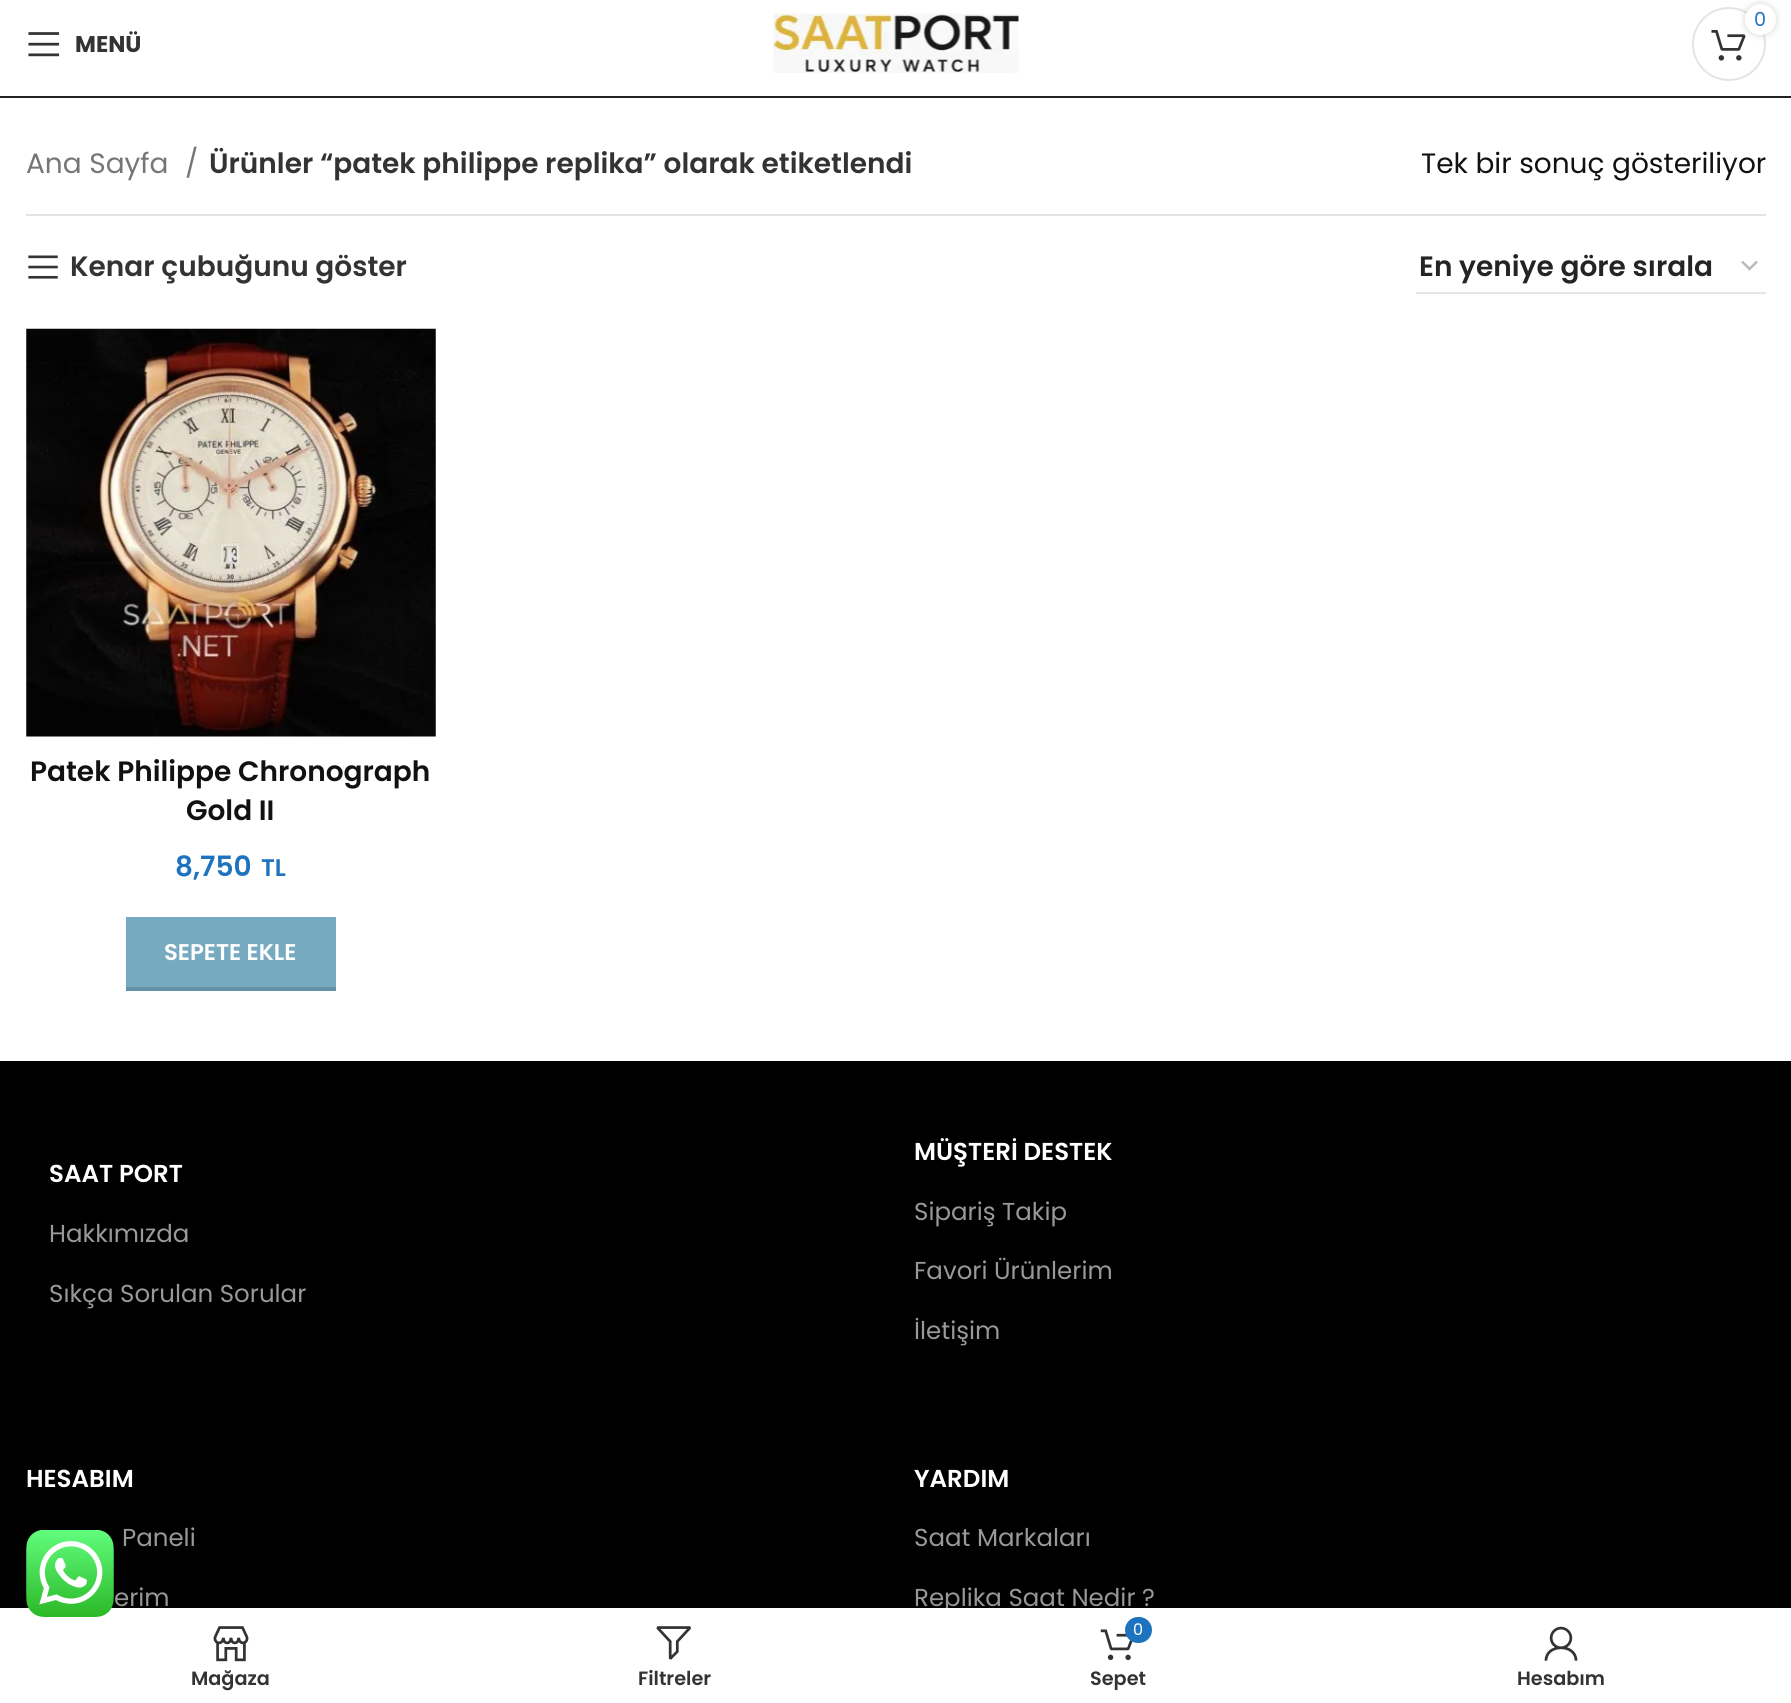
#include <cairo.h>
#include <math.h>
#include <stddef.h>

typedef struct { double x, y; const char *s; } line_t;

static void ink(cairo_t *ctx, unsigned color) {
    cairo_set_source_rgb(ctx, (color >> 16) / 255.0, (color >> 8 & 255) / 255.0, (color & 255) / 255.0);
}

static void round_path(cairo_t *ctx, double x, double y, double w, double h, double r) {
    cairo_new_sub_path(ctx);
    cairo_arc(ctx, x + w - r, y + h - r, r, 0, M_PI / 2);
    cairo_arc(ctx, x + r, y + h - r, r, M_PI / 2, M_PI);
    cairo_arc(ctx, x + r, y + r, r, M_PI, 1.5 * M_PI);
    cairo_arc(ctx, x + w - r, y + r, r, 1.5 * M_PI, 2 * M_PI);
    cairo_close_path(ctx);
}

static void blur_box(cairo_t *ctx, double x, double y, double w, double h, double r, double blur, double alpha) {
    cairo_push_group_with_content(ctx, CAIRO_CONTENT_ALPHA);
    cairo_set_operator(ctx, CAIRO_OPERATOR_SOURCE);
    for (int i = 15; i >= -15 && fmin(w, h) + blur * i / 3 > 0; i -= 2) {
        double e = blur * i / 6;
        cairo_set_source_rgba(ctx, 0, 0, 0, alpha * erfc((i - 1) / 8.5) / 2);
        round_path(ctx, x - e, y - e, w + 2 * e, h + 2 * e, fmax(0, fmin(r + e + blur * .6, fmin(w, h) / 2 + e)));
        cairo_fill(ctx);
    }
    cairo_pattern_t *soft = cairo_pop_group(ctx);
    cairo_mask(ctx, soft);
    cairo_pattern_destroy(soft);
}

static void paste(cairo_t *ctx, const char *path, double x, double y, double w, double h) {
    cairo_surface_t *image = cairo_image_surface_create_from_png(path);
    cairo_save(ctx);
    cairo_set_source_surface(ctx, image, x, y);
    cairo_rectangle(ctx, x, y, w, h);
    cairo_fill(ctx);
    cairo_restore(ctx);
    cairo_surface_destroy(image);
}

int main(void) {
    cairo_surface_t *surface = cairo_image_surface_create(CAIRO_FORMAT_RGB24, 1791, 1703);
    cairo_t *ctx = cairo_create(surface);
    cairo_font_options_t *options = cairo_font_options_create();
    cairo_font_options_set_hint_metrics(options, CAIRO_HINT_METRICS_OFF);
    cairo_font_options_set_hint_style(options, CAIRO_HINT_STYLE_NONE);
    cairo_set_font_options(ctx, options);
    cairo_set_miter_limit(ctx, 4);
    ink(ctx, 0xFFFFFF);
    cairo_paint(ctx);
    paste(ctx, "media/1.png", 28, 32, 32, 25);
    cairo_select_font_face(ctx, "Poppins", CAIRO_FONT_SLANT_NORMAL, CAIRO_FONT_WEIGHT_BOLD);
    cairo_set_font_size(ctx, 22.75);
    ink(ctx, 0x333333);
    cairo_move_to(ctx, 75, 52);
    cairo_show_text(ctx, "MENÜ");
    paste(ctx, "media/2.png", 773, 13, 246, 60);
    cairo_arc(ctx, 1729, 44, 36, 0, 2 * M_PI);
    ink(ctx, 0xE4E4E4);
    cairo_stroke(ctx);
    paste(ctx, "media/3.png", 1711, 30, 35, 31);
    ink(ctx, 0x000000);
    blur_box(ctx, 1745, 4, 31, 31, 15.5, 3.5, 0.17);
    ink(ctx, 0xFFFFFF);
    cairo_arc(ctx, 1760.5, 19.5, 15.5, 0, 2 * M_PI);
    cairo_fill(ctx);
    cairo_select_font_face(ctx, "Poppins", CAIRO_FONT_SLANT_NORMAL, CAIRO_FONT_WEIGHT_NORMAL);
    cairo_set_font_size(ctx, 19.25);
    ink(ctx, 0x1E73BE);
    cairo_move_to(ctx, 1754, 26);
    cairo_show_text(ctx, "0");
    ink(ctx, 0x212121);
    cairo_rectangle(ctx, 0, 96, 1791, 2);
    cairo_fill(ctx);
    ink(ctx, 0xE4E4E4);
    cairo_rectangle(ctx, 26, 214, 1740, 2);
    cairo_fill(ctx);
    cairo_set_font_size(ctx, 28);
    ink(ctx, 0x767676);
    cairo_move_to(ctx, 26, 173);
    cairo_show_text(ctx, "Ana Sayfa");
    cairo_move_to(ctx, 185, 173);
    cairo_show_text(ctx, "/");
    cairo_select_font_face(ctx, "Poppins SemiBold", CAIRO_FONT_SLANT_NORMAL, CAIRO_FONT_WEIGHT_NORMAL);
    ink(ctx, 0x333333);
    cairo_move_to(ctx, 209, 173);
    cairo_show_text(ctx, "Ürünler “patek philippe replika” olarak etiketlendi");
    cairo_select_font_face(ctx, "Poppins", CAIRO_FONT_SLANT_NORMAL, CAIRO_FONT_WEIGHT_NORMAL);
    ink(ctx, 0x111111);
    cairo_move_to(ctx, 1421, 173);
    cairo_show_text(ctx, "Tek bir sonuç gösteriliyor");
    paste(ctx, "media/4.png", 28, 255, 30, 24);
    cairo_select_font_face(ctx, "Poppins SemiBold", CAIRO_FONT_SLANT_NORMAL, CAIRO_FONT_WEIGHT_NORMAL);
    ink(ctx, 0x333333);
    cairo_move_to(ctx, 70, 276);
    cairo_show_text(ctx, "Kenar çubuğunu göster");
    cairo_new_path(ctx);
    cairo_move_to(ctx, 1742, 261.5);
    cairo_line_to(ctx, 1749.5, 269);
    cairo_line_to(ctx, 1757, 261.5);
    ink(ctx, 0xBBBBBB);
    cairo_set_line_width(ctx, 2.5);
    cairo_stroke(ctx);
    ink(ctx, 0xE6E6E6);
    cairo_rectangle(ctx, 1416, 292, 350, 2);
    cairo_fill(ctx);
    ink(ctx, 0x242424);
    cairo_move_to(ctx, 1419, 276);
    cairo_show_text(ctx, "En yeniye göre sırala");
    paste(ctx, "media/5.png", 26, 328, 410, 409);
    ink(ctx, 0x111111);
    cairo_move_to(ctx, 30, 781);
    cairo_show_text(ctx, "Patek Philippe Chronograph");
    cairo_move_to(ctx, 186, 820);
    cairo_show_text(ctx, "Gold II");
    ink(ctx, 0x1E73BE);
    cairo_move_to(ctx, 175, 876);
    cairo_show_text(ctx, "8,750");
    cairo_set_font_size(ctx, 24);
    cairo_move_to(ctx, 261, 876);
    cairo_show_text(ctx, "TL");
    ink(ctx, 0x76AAC1);
    cairo_rectangle(ctx, 126, 917, 210, 70);
    cairo_fill(ctx);
    ink(ctx, 0x6491A4);
    cairo_rectangle(ctx, 126, 987, 210, 4);
    cairo_fill(ctx);
    cairo_set_font_size(ctx, 22.75);
    ink(ctx, 0xFFFFFF);
    cairo_move_to(ctx, 164, 960);
    cairo_show_text(ctx, "SEPETE EKLE");
    ink(ctx, 0x000000);
    cairo_rectangle(ctx, 0, 1061, 1791, 547);
    cairo_fill(ctx);
    cairo_set_font_size(ctx, 24.5);
    ink(ctx, 0xFFFFFF);
    cairo_move_to(ctx, 49, 1182);
    cairo_show_text(ctx, "SAAT PORT");
    cairo_select_font_face(ctx, "Poppins", CAIRO_FONT_SLANT_NORMAL, CAIRO_FONT_WEIGHT_NORMAL);
    ink(ctx, 0x999999);
    cairo_move_to(ctx, 49, 1242);
    cairo_show_text(ctx, "Hakkımızda");
    cairo_move_to(ctx, 49, 1302);
    cairo_show_text(ctx, "Sıkça Sorulan Sorular");
    cairo_select_font_face(ctx, "Poppins SemiBold", CAIRO_FONT_SLANT_NORMAL, CAIRO_FONT_WEIGHT_NORMAL);
    ink(ctx, 0xFFFFFF);
    cairo_move_to(ctx, 914, 1160);
    cairo_show_text(ctx, "MÜŞTERİ DESTEK");
    cairo_select_font_face(ctx, "Poppins", CAIRO_FONT_SLANT_NORMAL, CAIRO_FONT_WEIGHT_NORMAL);
    ink(ctx, 0x999999);
    {
        static const line_t items[] = {
            {914, 1220, "Sipariş Takip"},
            {914, 1279, "Favori Ürünlerim"},
            {914, 1339, "İletişim"},
        };
        for (size_t i = 0; i < sizeof items / sizeof *items; i++) {
            cairo_move_to(ctx, items[i].x, items[i].y);
            cairo_show_text(ctx, items[i].s);
        }
    }
    cairo_select_font_face(ctx, "Poppins SemiBold", CAIRO_FONT_SLANT_NORMAL, CAIRO_FONT_WEIGHT_NORMAL);
    ink(ctx, 0xFFFFFF);
    cairo_move_to(ctx, 26, 1487);
    cairo_show_text(ctx, "HESABIM");
    cairo_select_font_face(ctx, "Poppins", CAIRO_FONT_SLANT_NORMAL, CAIRO_FONT_WEIGHT_NORMAL);
    ink(ctx, 0x999999);
    cairo_move_to(ctx, 122, 1546);
    cairo_show_text(ctx, "Paneli");
    cairo_move_to(ctx, 114, 1606);
    cairo_show_text(ctx, "erim");
    cairo_select_font_face(ctx, "Poppins SemiBold", CAIRO_FONT_SLANT_NORMAL, CAIRO_FONT_WEIGHT_NORMAL);
    ink(ctx, 0xFFFFFF);
    cairo_move_to(ctx, 914, 1487);
    cairo_show_text(ctx, "YARDIM");
    cairo_select_font_face(ctx, "Poppins", CAIRO_FONT_SLANT_NORMAL, CAIRO_FONT_WEIGHT_NORMAL);
    ink(ctx, 0x999999);
    cairo_move_to(ctx, 914, 1546);
    cairo_show_text(ctx, "Saat Markaları");
    cairo_move_to(ctx, 914, 1606);
    cairo_show_text(ctx, "Replika Saat Nedir ?");
    ink(ctx, 0x000000);
    blur_box(ctx, 0, 1608, 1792, 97, 0, 8, 0.12);
    ink(ctx, 0xFFFFFF);
    cairo_rectangle(ctx, 0, 1608, 1791, 95);
    cairo_fill(ctx);
    paste(ctx, "media/6.png", 26, 1530, 88, 87);
    paste(ctx, "media/7.png", 213, 1626, 36, 36);
    cairo_select_font_face(ctx, "Poppins SemiBold", CAIRO_FONT_SLANT_NORMAL, CAIRO_FONT_WEIGHT_NORMAL);
    cairo_set_font_size(ctx, 19.25);
    ink(ctx, 0x333333);
    cairo_move_to(ctx, 191, 1685);
    cairo_show_text(ctx, "Mağaza");
    paste(ctx, "media/8.png", 656, 1626, 36, 34);
    cairo_move_to(ctx, 638, 1685);
    cairo_show_text(ctx, "Filtreler");
    paste(ctx, "media/9.png", 1100, 1629, 33, 32);
    ink(ctx, 0x1E73BE);
    round_path(ctx, 1125, 1617, 27, 26, 13);
    cairo_fill(ctx);
    cairo_select_font_face(ctx, "Poppins", CAIRO_FONT_SLANT_NORMAL, CAIRO_FONT_WEIGHT_NORMAL);
    cairo_set_font_size(ctx, 16);
    ink(ctx, 0xFFFFFF);
    cairo_move_to(ctx, 1133, 1635);
    cairo_show_text(ctx, "0");
    cairo_select_font_face(ctx, "Poppins SemiBold", CAIRO_FONT_SLANT_NORMAL, CAIRO_FONT_WEIGHT_NORMAL);
    cairo_set_font_size(ctx, 19.25);
    ink(ctx, 0x333333);
    cairo_move_to(ctx, 1090, 1685);
    cairo_show_text(ctx, "Sepet");
    paste(ctx, "media/10.png", 1544, 1626, 34, 35);
    cairo_move_to(ctx, 1517, 1685);
    cairo_show_text(ctx, "Hesabım");
    cairo_surface_write_to_png(surface, "image.png");
    cairo_font_options_destroy(options);
    cairo_destroy(ctx);
    cairo_surface_destroy(surface);
    return 0;
}
